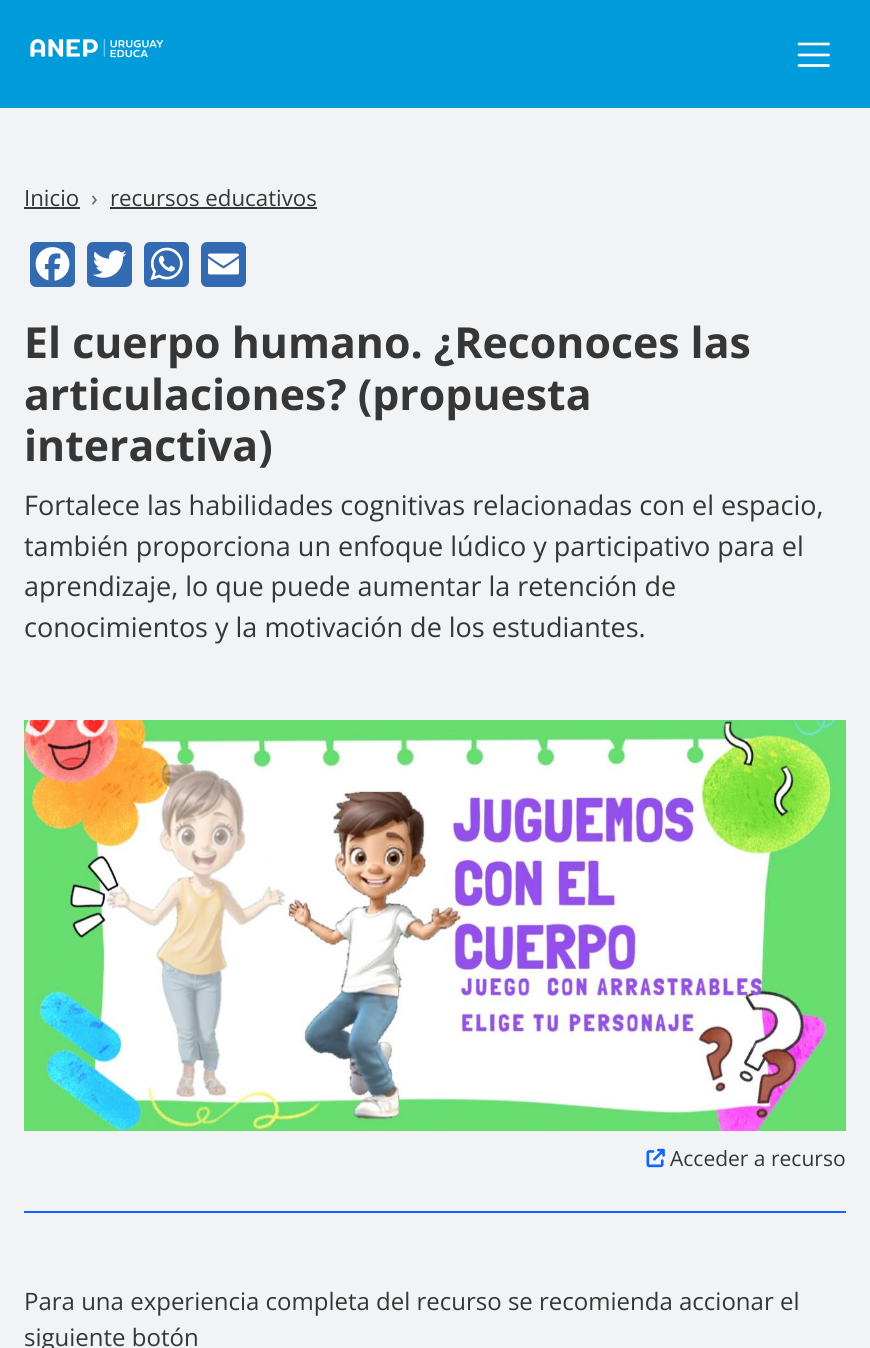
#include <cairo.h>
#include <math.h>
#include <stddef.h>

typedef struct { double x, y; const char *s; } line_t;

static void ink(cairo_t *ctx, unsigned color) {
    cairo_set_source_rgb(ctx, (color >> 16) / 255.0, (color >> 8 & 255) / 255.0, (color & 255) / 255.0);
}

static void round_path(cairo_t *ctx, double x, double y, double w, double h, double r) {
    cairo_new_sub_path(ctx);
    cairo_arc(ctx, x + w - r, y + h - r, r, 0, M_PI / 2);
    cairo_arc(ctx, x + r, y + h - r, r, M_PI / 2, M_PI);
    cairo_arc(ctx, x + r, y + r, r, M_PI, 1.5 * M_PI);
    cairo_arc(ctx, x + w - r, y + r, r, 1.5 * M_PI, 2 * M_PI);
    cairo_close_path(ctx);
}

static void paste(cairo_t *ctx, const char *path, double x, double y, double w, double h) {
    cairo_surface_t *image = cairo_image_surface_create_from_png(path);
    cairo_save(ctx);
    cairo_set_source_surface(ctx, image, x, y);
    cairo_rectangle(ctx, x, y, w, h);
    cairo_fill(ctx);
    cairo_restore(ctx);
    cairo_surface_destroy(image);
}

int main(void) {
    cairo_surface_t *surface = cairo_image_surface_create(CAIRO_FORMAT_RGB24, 870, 1348);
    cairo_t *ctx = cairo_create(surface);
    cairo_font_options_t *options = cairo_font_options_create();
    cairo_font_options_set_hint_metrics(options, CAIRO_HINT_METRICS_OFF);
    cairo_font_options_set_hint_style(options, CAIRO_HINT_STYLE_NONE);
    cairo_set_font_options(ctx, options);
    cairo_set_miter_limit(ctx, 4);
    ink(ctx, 0xF2F3F4);
    cairo_paint(ctx);
    ink(ctx, 0x009BDB);
    cairo_rectangle(ctx, 0, 0, 870, 108);
    cairo_fill(ctx);
    paste(ctx, "media/1.png", 30, 39, 134, 19);
    cairo_new_path(ctx);
    cairo_move_to(ctx, 799, 44);
    cairo_line_to(ctx, 828.5, 44);
    cairo_move_to(ctx, 799, 55);
    cairo_line_to(ctx, 828.5, 55);
    cairo_move_to(ctx, 799, 65.5);
    cairo_line_to(ctx, 828.5, 65.5);
    ink(ctx, 0xFFFFFF);
    cairo_set_line_width(ctx, 2.7);
    cairo_set_line_cap(ctx, CAIRO_LINE_CAP_ROUND);
    cairo_stroke(ctx);
    cairo_select_font_face(ctx, "Open Sans", CAIRO_FONT_SLANT_NORMAL, CAIRO_FONT_WEIGHT_NORMAL);
    cairo_set_font_size(ctx, 22.25);
    ink(ctx, 0x363636);
    cairo_move_to(ctx, 24, 206);
    cairo_show_text(ctx, "Inicio");
    cairo_rectangle(ctx, 24, 207, 56, 2);
    cairo_fill(ctx);
    ink(ctx, 0x626262);
    cairo_move_to(ctx, 91, 206);
    cairo_show_text(ctx, "›");
    ink(ctx, 0x363636);
    cairo_move_to(ctx, 110, 206);
    cairo_show_text(ctx, "recursos educativos");
    cairo_rectangle(ctx, 110, 207, 207, 2);
    cairo_fill(ctx);
    ink(ctx, 0x336BB3);
    round_path(ctx, 30, 242, 45, 45, 6);
    cairo_fill(ctx);
    paste(ctx, "media/2.png", 35, 247, 35, 34);
    round_path(ctx, 87, 242, 45, 45, 6);
    cairo_fill(ctx);
    paste(ctx, "media/3.png", 92, 250, 35, 28);
    round_path(ctx, 144, 242, 45, 45, 6);
    cairo_fill(ctx);
    paste(ctx, "media/4.png", 150, 247, 33, 34);
    round_path(ctx, 201, 242, 45, 45, 6);
    cairo_fill(ctx);
    paste(ctx, "media/5.png", 208, 253, 31, 22);
    cairo_select_font_face(ctx, "Open Sans", CAIRO_FONT_SLANT_NORMAL, CAIRO_FONT_WEIGHT_BOLD);
    cairo_set_font_size(ctx, 42.8);
    ink(ctx, 0x363636);
    {
        static const line_t items[] = {
            {24, 358, "El cuerpo humano. ¿Reconoces las"},
            {24, 410, "articulaciones? (propuesta"},
            {24, 461, "interactiva)"},
        };
        for (size_t i = 0; i < sizeof items / sizeof *items; i++) {
            cairo_move_to(ctx, items[i].x, items[i].y);
            cairo_show_text(ctx, items[i].s);
        }
    }
    cairo_select_font_face(ctx, "Open Sans", CAIRO_FONT_SLANT_NORMAL, CAIRO_FONT_WEIGHT_NORMAL);
    cairo_set_font_size(ctx, 27);
    {
        static const line_t items[] = {
            {24, 515, "Fortalece las habilidades cognitivas relacionadas con el espacio,"},
            {24, 556, "también proporciona un enfoque lúdico y participativo para el"},
            {24, 596, "aprendizaje, lo que puede aumentar la retención de"},
            {24, 637, "conocimientos y la motivación de los estudiantes."},
        };
        for (size_t i = 0; i < sizeof items / sizeof *items; i++) {
            cairo_move_to(ctx, items[i].x, items[i].y);
            cairo_show_text(ctx, items[i].s);
        }
    }
    ink(ctx, 0x1363FF);
    cairo_rectangle(ctx, 24, 1211, 822, 2);
    cairo_fill(ctx);
    paste(ctx, "media/6.png", 24, 720, 822, 411);
    paste(ctx, "media/7.png", 646, 1148, 19, 20);
    cairo_set_font_size(ctx, 21);
    ink(ctx, 0x363636);
    cairo_move_to(ctx, 670, 1166);
    cairo_show_text(ctx, "Acceder a recurso");
    cairo_set_font_size(ctx, 24);
    cairo_move_to(ctx, 24, 1310);
    cairo_show_text(ctx, "Para una experiencia completa del recurso se recomienda accionar el");
    cairo_move_to(ctx, 24, 1346);
    cairo_show_text(ctx, "siguiente botón");
    cairo_surface_write_to_png(surface, "image.png");
    cairo_font_options_destroy(options);
    cairo_destroy(ctx);
    cairo_surface_destroy(surface);
    return 0;
}
